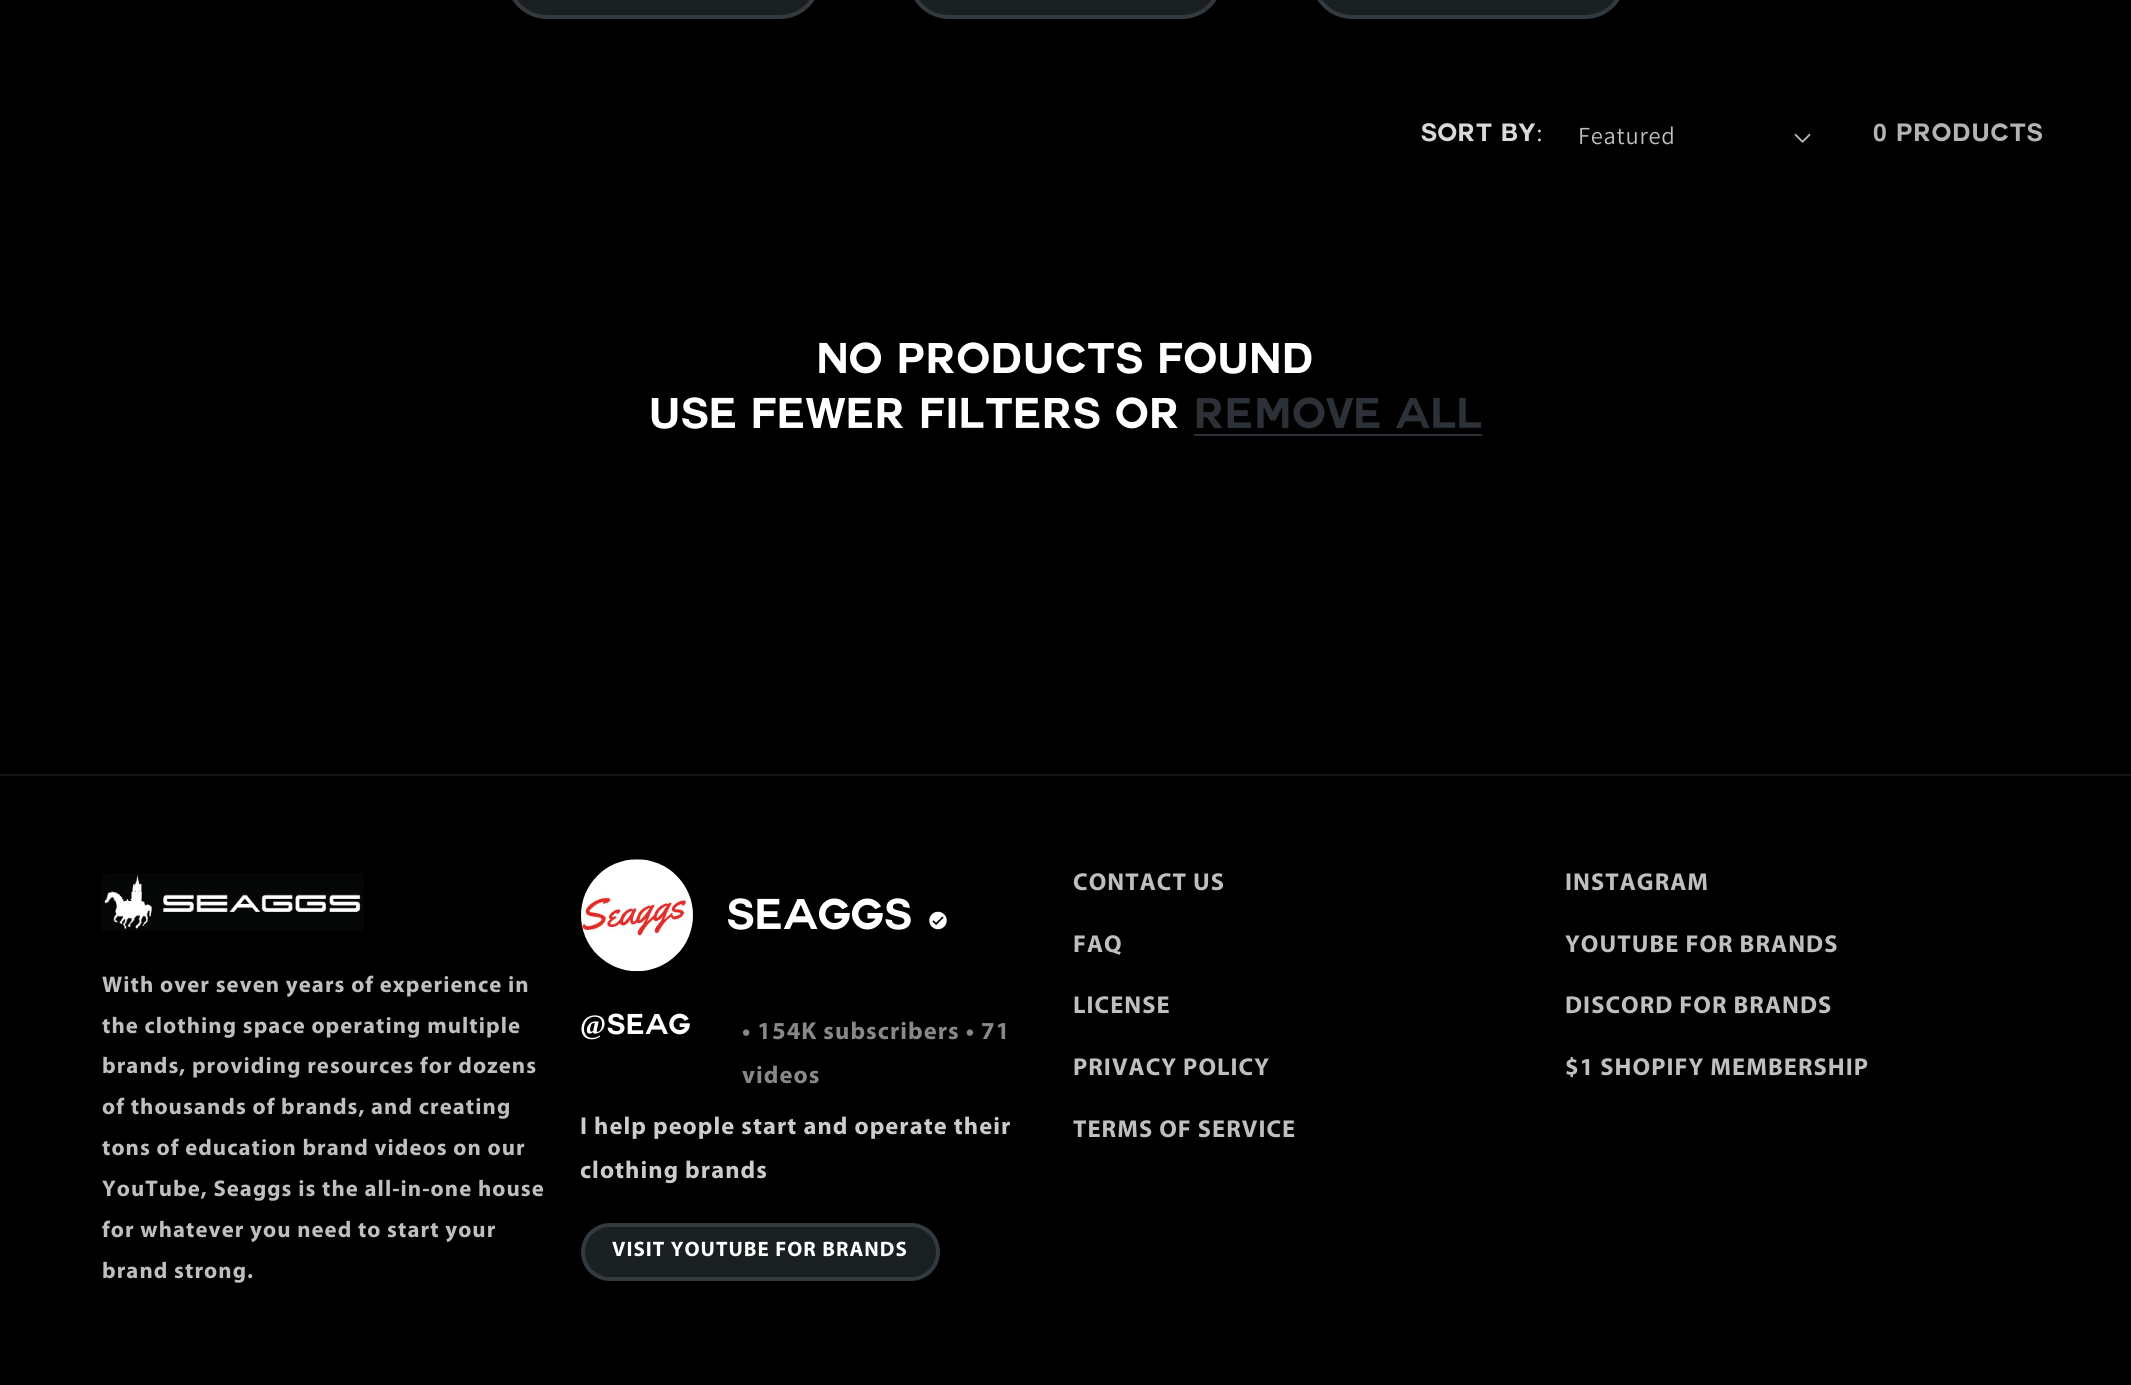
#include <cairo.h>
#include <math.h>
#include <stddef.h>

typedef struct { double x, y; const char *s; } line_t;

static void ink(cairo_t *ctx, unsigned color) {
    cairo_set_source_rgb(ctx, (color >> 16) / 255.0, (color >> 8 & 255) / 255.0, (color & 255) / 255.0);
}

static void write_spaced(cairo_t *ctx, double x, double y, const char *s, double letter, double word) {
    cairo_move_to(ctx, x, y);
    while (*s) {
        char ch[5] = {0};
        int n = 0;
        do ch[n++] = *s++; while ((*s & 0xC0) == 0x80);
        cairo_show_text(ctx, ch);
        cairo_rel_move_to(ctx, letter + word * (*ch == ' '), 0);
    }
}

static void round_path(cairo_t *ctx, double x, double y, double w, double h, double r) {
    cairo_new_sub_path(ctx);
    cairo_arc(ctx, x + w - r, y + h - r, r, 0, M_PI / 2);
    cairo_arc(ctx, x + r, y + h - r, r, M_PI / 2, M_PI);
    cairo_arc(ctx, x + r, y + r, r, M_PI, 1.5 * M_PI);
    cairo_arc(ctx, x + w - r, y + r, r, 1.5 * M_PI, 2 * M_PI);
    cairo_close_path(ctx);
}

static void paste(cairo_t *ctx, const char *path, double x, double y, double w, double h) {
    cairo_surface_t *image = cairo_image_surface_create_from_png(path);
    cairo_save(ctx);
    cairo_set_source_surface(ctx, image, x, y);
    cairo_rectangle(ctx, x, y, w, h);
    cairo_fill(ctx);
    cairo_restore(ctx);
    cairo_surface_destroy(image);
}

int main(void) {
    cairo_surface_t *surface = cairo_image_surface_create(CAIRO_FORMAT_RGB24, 2131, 1385);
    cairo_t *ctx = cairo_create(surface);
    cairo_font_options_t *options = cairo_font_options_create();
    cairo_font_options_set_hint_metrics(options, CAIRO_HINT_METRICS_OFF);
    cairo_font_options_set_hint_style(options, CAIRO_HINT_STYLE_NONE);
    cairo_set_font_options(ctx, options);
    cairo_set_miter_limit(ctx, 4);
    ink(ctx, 0x000000);
    cairo_paint(ctx);
    ink(ctx, 0x1A1F22);
    round_path(ctx, 508, -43, 311, 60, 39);
    cairo_fill_preserve(ctx);
    ink(ctx, 0x333A3F);
    cairo_set_line_width(ctx, 4);
    cairo_stroke(ctx);
    ink(ctx, 0x1A1F22);
    round_path(ctx, 910, -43, 311, 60, 39);
    cairo_fill_preserve(ctx);
    ink(ctx, 0x333A3F);
    cairo_stroke(ctx);
    ink(ctx, 0x1A1F22);
    round_path(ctx, 1313, -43, 311, 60, 39);
    cairo_fill_preserve(ctx);
    ink(ctx, 0x333A3F);
    cairo_stroke(ctx);
    cairo_select_font_face(ctx, "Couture", CAIRO_FONT_SLANT_NORMAL, CAIRO_FONT_WEIGHT_BOLD);
    cairo_set_font_size(ctx, 24.5);
    ink(ctx, 0xD9D9D9);
    write_spaced(ctx, 1421, 141, "SORT BY", 0.75, 0);
    cairo_select_font_face(ctx, "Liberation Serif", CAIRO_FONT_SLANT_NORMAL, CAIRO_FONT_WEIGHT_NORMAL);
    write_spaced(ctx, 1536, 141, ":", 0.75, 0);
    cairo_select_font_face(ctx, "Assistant", CAIRO_FONT_SLANT_NORMAL, CAIRO_FONT_WEIGHT_NORMAL);
    ink(ctx, 0xBFBFBF);
    write_spaced(ctx, 1578, 144, "Featured", 0.75, 0);
    paste(ctx, "media/1.png", 1794, 133, 17, 10);
    cairo_select_font_face(ctx, "Couture", CAIRO_FONT_SLANT_NORMAL, CAIRO_FONT_WEIGHT_BOLD);
    ink(ctx, 0xB3B3B3);
    write_spaced(ctx, 1873, 141, "0 PRODUCTS", 1.05, 0);
    cairo_set_font_size(ctx, 42);
    ink(ctx, 0xFFFFFF);
    write_spaced(ctx, 817, 373, "NO PRODUCTS FOUND", 1.05, 0);
    write_spaced(ctx, 649, 428, "USE FEWER FILTERS OR", 1.05, 0);
    ink(ctx, 0x2B3136);
    write_spaced(ctx, 1194, 428, "REMOVE ALL", 1.05, 0);
    cairo_rectangle(ctx, 1194, 434, 288, 2);
    cairo_fill(ctx);
    ink(ctx, 0x141414);
    cairo_rectangle(ctx, 0, 774, 2131, 2);
    cairo_fill(ctx);
    paste(ctx, "media/2.png", 102, 873, 262, 58);
    cairo_select_font_face(ctx, "Myriad", CAIRO_FONT_SLANT_NORMAL, CAIRO_FONT_WEIGHT_BOLD);
    cairo_set_font_size(ctx, 22.75);
    ink(ctx, 0xBFBFBF);
    {
        static const line_t items[] = {
            {102, 992, "With over seven years of experience in"},
            {102, 1033, "the clothing space operating multiple"},
            {102, 1073, "brands, providing resources for dozens"},
            {102, 1114, "of thousands of brands, and creating"},
            {102, 1155, "tons of education brand videos on our"},
            {102, 1196, "YouTube, Seaggs is the all-in-one house"},
            {102, 1237, "for whatever you need to start your"},
            {102, 1278, "brand strong."},
        };
        for (size_t i = 0; i < sizeof items / sizeof *items; i++) {
            write_spaced(ctx, items[i].x, items[i].y, items[i].s, 1.05, 0);
        }
    }
    paste(ctx, "media/3.png", 581, 859, 112, 113);
    cairo_select_font_face(ctx, "Couture", CAIRO_FONT_SLANT_NORMAL, CAIRO_FONT_WEIGHT_BOLD);
    cairo_set_font_size(ctx, 42);
    ink(ctx, 0xFFFFFF);
    write_spaced(ctx, 727, 929, "Seaggs", 1.05, 0);
    paste(ctx, "media/4.png", 929, 911, 18, 19);
    cairo_select_font_face(ctx, "Liberation Serif", CAIRO_FONT_SLANT_NORMAL, CAIRO_FONT_WEIGHT_BOLD);
    cairo_set_font_size(ctx, 28);
    write_spaced(ctx, 580, 1034, "@", 1.05, 0);
    cairo_select_font_face(ctx, "Couture", CAIRO_FONT_SLANT_NORMAL, CAIRO_FONT_WEIGHT_BOLD);
    write_spaced(ctx, 607, 1034, "SEAG...", 1.05, 0);
    cairo_select_font_face(ctx, "Myriad", CAIRO_FONT_SLANT_NORMAL, CAIRO_FONT_WEIGHT_BOLD);
    cairo_set_font_size(ctx, 24.5);
    ink(ctx, 0x888888);
    write_spaced(ctx, 742, 1039, "• 154K subscribers • 71", 1.05, 0);
    write_spaced(ctx, 742, 1083, "videos", 1.05, 0);
    ink(ctx, 0xCCCCCC);
    write_spaced(ctx, 580, 1134, "I help people start and operate their", 1.05, 0);
    write_spaced(ctx, 580, 1178, "clothing brands", 1.05, 0);
    ink(ctx, 0x1A1F22);
    round_path(ctx, 583, 1225, 355, 54, 27);
    cairo_fill_preserve(ctx);
    ink(ctx, 0x333A3F);
    cairo_stroke(ctx);
    cairo_set_font_size(ctx, 21);
    ink(ctx, 0xFFFFFF);
    write_spaced(ctx, 612, 1256, "VISIT YOUTUBE FOR BRANDS", 1.05, 0);
    cairo_set_font_size(ctx, 24.5);
    ink(ctx, 0xBFBFBF);
    {
        static const line_t items[] = {
            {1073, 890, "CONTACT US"},
            {1073, 952, "FAQ"},
            {1073, 1013, "LICENSE"},
            {1073, 1075, "PRIVACY POLICY"},
            {1073, 1137, "TERMS OF SERVICE"},
            {1565, 890, "INSTAGRAM"},
            {1565, 952, "YOUTUBE FOR BRANDS"},
            {1565, 1013, "DISCORD FOR BRANDS"},
            {1565, 1075, "$1 SHOPIFY MEMBERSHIP"},
        };
        for (size_t i = 0; i < sizeof items / sizeof *items; i++) {
            write_spaced(ctx, items[i].x, items[i].y, items[i].s, 1.05, 0);
        }
    }
    cairo_surface_write_to_png(surface, "image.png");
    cairo_font_options_destroy(options);
    cairo_destroy(ctx);
    cairo_surface_destroy(surface);
    return 0;
}
